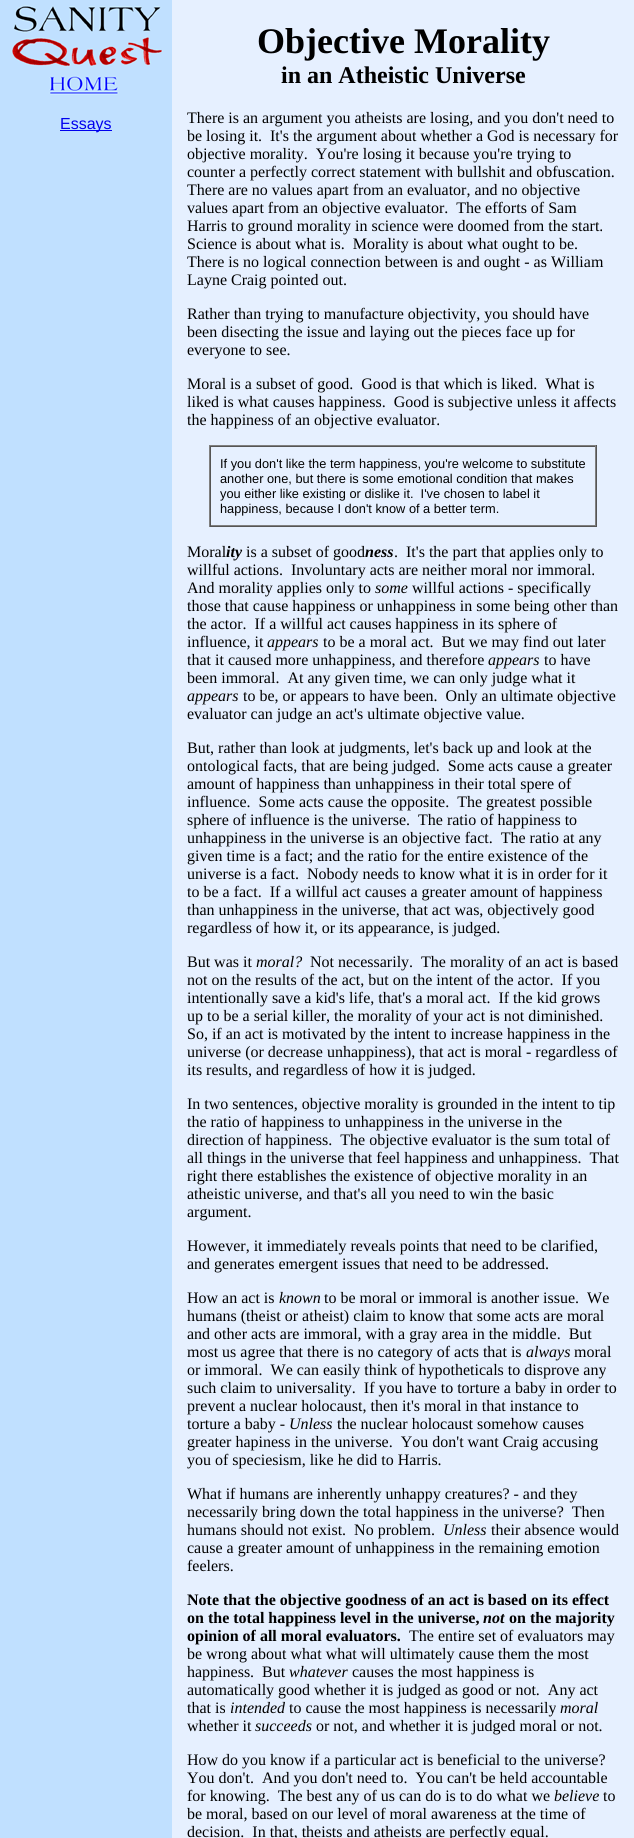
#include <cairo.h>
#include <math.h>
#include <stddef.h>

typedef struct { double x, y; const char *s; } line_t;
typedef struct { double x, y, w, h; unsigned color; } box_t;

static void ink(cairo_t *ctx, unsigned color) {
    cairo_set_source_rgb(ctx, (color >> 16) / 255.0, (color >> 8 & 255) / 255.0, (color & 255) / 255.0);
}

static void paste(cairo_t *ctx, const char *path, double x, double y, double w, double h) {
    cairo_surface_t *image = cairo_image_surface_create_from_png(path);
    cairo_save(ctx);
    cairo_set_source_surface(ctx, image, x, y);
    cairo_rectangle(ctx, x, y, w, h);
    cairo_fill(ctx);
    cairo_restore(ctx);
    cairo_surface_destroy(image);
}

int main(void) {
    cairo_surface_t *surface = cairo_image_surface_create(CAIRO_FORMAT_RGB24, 634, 1838);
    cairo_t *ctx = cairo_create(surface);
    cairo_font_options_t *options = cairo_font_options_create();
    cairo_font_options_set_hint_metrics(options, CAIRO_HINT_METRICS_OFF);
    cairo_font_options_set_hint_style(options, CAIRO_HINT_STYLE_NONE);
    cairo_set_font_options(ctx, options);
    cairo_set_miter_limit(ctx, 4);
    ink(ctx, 0xC0E0FF);
    cairo_paint(ctx);
    paste(ctx, "media/1.png", 11, 5, 152, 90);
    ink(ctx, 0x0000EE);
    cairo_rectangle(ctx, 60, 130, 52, 1);
    cairo_fill(ctx);
    cairo_select_font_face(ctx, "Liberation Sans", CAIRO_FONT_SLANT_NORMAL, CAIRO_FONT_WEIGHT_NORMAL);
    cairo_set_font_size(ctx, 16);
    cairo_move_to(ctx, 60, 129);
    cairo_show_text(ctx, "Essays");
    ink(ctx, 0xE6F0FF);
    cairo_rectangle(ctx, 172, 0, 462, 1838);
    cairo_fill(ctx);
    cairo_select_font_face(ctx, "Liberation Serif", CAIRO_FONT_SLANT_NORMAL, CAIRO_FONT_WEIGHT_BOLD);
    cairo_set_font_size(ctx, 36);
    ink(ctx, 0x000000);
    cairo_move_to(ctx, 257, 53);
    cairo_show_text(ctx, "Objective Morality");
    cairo_set_font_size(ctx, 24);
    cairo_move_to(ctx, 281, 83);
    cairo_show_text(ctx, "in an Atheistic Universe");
    cairo_select_font_face(ctx, "Liberation Serif", CAIRO_FONT_SLANT_NORMAL, CAIRO_FONT_WEIGHT_NORMAL);
    cairo_set_font_size(ctx, 16);
    {
        static const line_t items[] = {
            {187, 123, "There is an argument you atheists are losing, and you don't need to"},
            {187, 141, "be losing it."},
            {270, 141, "It's the argument about whether a God is necessary for"},
            {187, 159, "objective morality.  You're losing it because you're trying to"},
            {187, 177, "counter a perfectly correct statement with bullshit and obfuscation."},
            {187, 195, "There are no values apart from an evaluator, and no objective"},
            {187, 213, "values apart from an objective evaluator.  The efforts of Sam"},
            {187, 231, "Harris to ground morality in science were doomed from the start."},
            {187, 249, "Science is about what is.  Morality is about what ought to be."},
            {187, 267, "There is no logical connection between is and ought - as William"},
            {187, 285, "Layne Craig pointed out."},
            {187, 319, "Rather than trying to manufacture objectivity, you should have"},
            {187, 337, "been disecting the issue and laying out the pieces face up for"},
            {187, 355, "everyone to see."},
            {187, 389, "Moral is a subset of good.  Good is that which is liked.  What is"},
            {187, 407, "liked is what causes happiness.  Good is subjective unless it affects"},
            {187, 425, "the happiness of an objective evaluator."},
        };
        for (size_t i = 0; i < sizeof items / sizeof *items; i++) {
            cairo_move_to(ctx, items[i].x, items[i].y);
            cairo_show_text(ctx, items[i].s);
        }
    }
    {
        static const box_t items[] = {
            {209, 445, 388, 1, 0x808080},
            {596, 445, 1, 82, 0x555555},
            {209, 526, 388, 1, 0x555555},
            {209, 445, 1, 82, 0x808080},
            {210, 446, 386, 1, 0x555555},
            {595, 446, 1, 80, 0x808080},
            {210, 525, 386, 1, 0x808080},
            {210, 446, 1, 80, 0x555555},
        };
        for (size_t i = 0; i < sizeof items / sizeof *items; i++) {
            ink(ctx, items[i].color);
            cairo_rectangle(ctx, items[i].x, items[i].y, items[i].w, items[i].h);
            cairo_fill(ctx);
        }
    }
    cairo_select_font_face(ctx, "Liberation Sans", CAIRO_FONT_SLANT_NORMAL, CAIRO_FONT_WEIGHT_NORMAL);
    cairo_set_font_size(ctx, 12.8);
    ink(ctx, 0x000000);
    {
        static const line_t items[] = {
            {220, 468, "If you don't like the term happiness, you're welcome to substitute"},
            {220, 483, "another one, but there is some emotional condition that makes"},
            {220, 498, "you either like existing or dislike it.  I've chosen to label it"},
            {220, 513, "happiness, because I don't know of a better term."},
        };
        for (size_t i = 0; i < sizeof items / sizeof *items; i++) {
            cairo_move_to(ctx, items[i].x, items[i].y);
            cairo_show_text(ctx, items[i].s);
        }
    }
    cairo_select_font_face(ctx, "Liberation Serif", CAIRO_FONT_SLANT_NORMAL, CAIRO_FONT_WEIGHT_NORMAL);
    cairo_set_font_size(ctx, 16);
    cairo_move_to(ctx, 187, 557);
    cairo_show_text(ctx, "Moral");
    cairo_select_font_face(ctx, "Liberation Serif", CAIRO_FONT_SLANT_ITALIC, CAIRO_FONT_WEIGHT_BOLD);
    cairo_move_to(ctx, 226, 557);
    cairo_show_text(ctx, "ity");
    cairo_select_font_face(ctx, "Liberation Serif", CAIRO_FONT_SLANT_NORMAL, CAIRO_FONT_WEIGHT_NORMAL);
    cairo_move_to(ctx, 246, 557);
    cairo_show_text(ctx, "is a subset of good");
    cairo_select_font_face(ctx, "Liberation Serif", CAIRO_FONT_SLANT_ITALIC, CAIRO_FONT_WEIGHT_BOLD);
    cairo_move_to(ctx, 365, 557);
    cairo_show_text(ctx, "ness");
    cairo_select_font_face(ctx, "Liberation Serif", CAIRO_FONT_SLANT_NORMAL, CAIRO_FONT_WEIGHT_NORMAL);
    {
        static const line_t items[] = {
            {394, 557, ".  It's the part that applies only to"},
            {187, 575, "willful actions.  Involuntary acts are neither moral nor immoral."},
            {187, 593, "And morality applies only to"},
        };
        for (size_t i = 0; i < sizeof items / sizeof *items; i++) {
            cairo_move_to(ctx, items[i].x, items[i].y);
            cairo_show_text(ctx, items[i].s);
        }
    }
    cairo_select_font_face(ctx, "Liberation Serif", CAIRO_FONT_SLANT_ITALIC, CAIRO_FONT_WEIGHT_NORMAL);
    cairo_move_to(ctx, 375, 593);
    cairo_show_text(ctx, "some");
    cairo_select_font_face(ctx, "Liberation Serif", CAIRO_FONT_SLANT_NORMAL, CAIRO_FONT_WEIGHT_NORMAL);
    {
        static const line_t items[] = {
            {412, 593, "willful actions - specifically"},
            {187, 611, "those that cause happiness or unhappiness in some being other than"},
            {187, 629, "the actor.  If a willful act causes happiness in its sphere of"},
            {187, 647, "influence, it"},
        };
        for (size_t i = 0; i < sizeof items / sizeof *items; i++) {
            cairo_move_to(ctx, items[i].x, items[i].y);
            cairo_show_text(ctx, items[i].s);
        }
    }
    cairo_select_font_face(ctx, "Liberation Serif", CAIRO_FONT_SLANT_ITALIC, CAIRO_FONT_WEIGHT_NORMAL);
    cairo_move_to(ctx, 267, 647);
    cairo_show_text(ctx, "appears");
    cairo_select_font_face(ctx, "Liberation Serif", CAIRO_FONT_SLANT_NORMAL, CAIRO_FONT_WEIGHT_NORMAL);
    cairo_move_to(ctx, 323, 647);
    cairo_show_text(ctx, "to be a moral act.  But we may find out later");
    cairo_move_to(ctx, 187, 665);
    cairo_show_text(ctx, "that it caused more unhappiness, and therefore");
    cairo_select_font_face(ctx, "Liberation Serif", CAIRO_FONT_SLANT_ITALIC, CAIRO_FONT_WEIGHT_NORMAL);
    cairo_move_to(ctx, 488, 665);
    cairo_show_text(ctx, "appears");
    cairo_select_font_face(ctx, "Liberation Serif", CAIRO_FONT_SLANT_NORMAL, CAIRO_FONT_WEIGHT_NORMAL);
    cairo_move_to(ctx, 544, 665);
    cairo_show_text(ctx, "to have");
    cairo_move_to(ctx, 187, 683);
    cairo_show_text(ctx, "been immoral.  At any given time, we can only judge what it");
    cairo_select_font_face(ctx, "Liberation Serif", CAIRO_FONT_SLANT_ITALIC, CAIRO_FONT_WEIGHT_NORMAL);
    cairo_move_to(ctx, 187, 701);
    cairo_show_text(ctx, "appears");
    cairo_select_font_face(ctx, "Liberation Serif", CAIRO_FONT_SLANT_NORMAL, CAIRO_FONT_WEIGHT_NORMAL);
    {
        static const line_t items[] = {
            {243, 701, "to be, or appears to have been.  Only an ultimate objective"},
            {187, 719, "evaluator can judge an act's ultimate objective value."},
            {187, 753, "But, rather than look at judgments, let's back up and look at the"},
            {187, 771, "ontological facts, that are being judged.  Some acts cause a greater"},
            {187, 789, "amount of happiness than unhappiness in their total spere of"},
            {187, 807, "influence.  Some acts cause the opposite.  The greatest possible"},
            {187, 825, "sphere of influence is the universe."},
            {418, 825, "The ratio of happiness to"},
            {187, 843, "unhappiness in the universe is an objective fact.  The ratio at any"},
            {187, 861, "given time is a fact; and the ratio for the entire existence of the"},
            {187, 879, "universe is a fact.  Nobody needs to know what it is in order for it"},
            {187, 897, "to be a fact.  If a willful act causes a greater amount of happiness"},
            {187, 915, "than unhappiness in the universe, that act was, objectively good"},
            {187, 933, "regardless of how it, or its appearance, is judged."},
            {187, 967, "But was it"},
        };
        for (size_t i = 0; i < sizeof items / sizeof *items; i++) {
            cairo_move_to(ctx, items[i].x, items[i].y);
            cairo_show_text(ctx, items[i].s);
        }
    }
    cairo_select_font_face(ctx, "Liberation Serif", CAIRO_FONT_SLANT_ITALIC, CAIRO_FONT_WEIGHT_NORMAL);
    cairo_move_to(ctx, 256, 967);
    cairo_show_text(ctx, "moral?");
    cairo_select_font_face(ctx, "Liberation Serif", CAIRO_FONT_SLANT_NORMAL, CAIRO_FONT_WEIGHT_NORMAL);
    {
        static const line_t items[] = {
            {310, 967, "Not necessarily.  The morality of an act is based"},
            {187, 985, "not on the results of the act, but on the intent of the actor.  If you"},
            {187, 1003, "intentionally save a kid's life, that's a moral act.  If the kid grows"},
            {187, 1021, "up to be a serial killer, the morality of your act is not diminished."},
            {187, 1039, "So, if an act is motivated by the intent to increase happiness in the"},
            {187, 1057, "universe (or decrease unhappiness), that act is moral - regardless of"},
            {187, 1075, "its results, and regardless of how it is judged."},
            {187, 1109, "In two sentences, objective morality is grounded in the intent to tip"},
            {187, 1127, "the ratio of happiness to unhappiness in the universe in the"},
            {187, 1145, "direction of happiness.  The objective evaluator is the sum total of"},
            {187, 1163, "all things in the universe that feel happiness and unhappiness.  That"},
            {187, 1181, "right there establishes the existence of objective morality in an"},
            {187, 1199, "atheistic universe, and that's all you need to win the basic"},
            {187, 1217, "argument."},
            {187, 1251, "However, it immediately reveals points that need to be clarified,"},
            {187, 1269, "and generates emergent issues that need to be addressed."},
            {187, 1303, "How an act is"},
        };
        for (size_t i = 0; i < sizeof items / sizeof *items; i++) {
            cairo_move_to(ctx, items[i].x, items[i].y);
            cairo_show_text(ctx, items[i].s);
        }
    }
    cairo_select_font_face(ctx, "Liberation Serif", CAIRO_FONT_SLANT_ITALIC, CAIRO_FONT_WEIGHT_NORMAL);
    cairo_move_to(ctx, 279, 1303);
    cairo_show_text(ctx, "known");
    cairo_select_font_face(ctx, "Liberation Serif", CAIRO_FONT_SLANT_NORMAL, CAIRO_FONT_WEIGHT_NORMAL);
    {
        static const line_t items[] = {
            {324, 1303, "to be moral or immoral is another issue.  We"},
            {187, 1321, "humans (theist or atheist) claim to know that some acts are moral"},
            {187, 1339, "and other acts are immoral, with a gray area in the middle.  But"},
            {187, 1357, "most us agree that there is no category of acts that is"},
        };
        for (size_t i = 0; i < sizeof items / sizeof *items; i++) {
            cairo_move_to(ctx, items[i].x, items[i].y);
            cairo_show_text(ctx, items[i].s);
        }
    }
    cairo_select_font_face(ctx, "Liberation Serif", CAIRO_FONT_SLANT_ITALIC, CAIRO_FONT_WEIGHT_NORMAL);
    cairo_move_to(ctx, 526, 1357);
    cairo_show_text(ctx, "always");
    cairo_select_font_face(ctx, "Liberation Serif", CAIRO_FONT_SLANT_NORMAL, CAIRO_FONT_WEIGHT_NORMAL);
    {
        static const line_t items[] = {
            {574, 1357, "moral"},
            {187, 1375, "or immoral.  We can easily think of hypotheticals to disprove any"},
            {187, 1393, "such claim to universality.  If you have to torture a baby in order to"},
            {187, 1411, "prevent a nuclear holocaust, then it's moral in that instance to"},
            {187, 1429, "torture a baby -"},
        };
        for (size_t i = 0; i < sizeof items / sizeof *items; i++) {
            cairo_move_to(ctx, items[i].x, items[i].y);
            cairo_show_text(ctx, items[i].s);
        }
    }
    cairo_select_font_face(ctx, "Liberation Serif", CAIRO_FONT_SLANT_ITALIC, CAIRO_FONT_WEIGHT_NORMAL);
    cairo_move_to(ctx, 289, 1429);
    cairo_show_text(ctx, "Unless");
    cairo_select_font_face(ctx, "Liberation Serif", CAIRO_FONT_SLANT_NORMAL, CAIRO_FONT_WEIGHT_NORMAL);
    {
        static const line_t items[] = {
            {337, 1429, "the nuclear holocaust somehow causes"},
            {187, 1447, "greater hapiness in the universe.  You don't want Craig accusing"},
            {187, 1465, "you of speciesism, like he did to Harris."},
            {187, 1499, "What if humans are inherently unhappy creatures? - and they"},
            {187, 1517, "necessarily bring down the total happiness in the universe?  Then"},
            {187, 1535, "humans should not exist.  No problem."},
        };
        for (size_t i = 0; i < sizeof items / sizeof *items; i++) {
            cairo_move_to(ctx, items[i].x, items[i].y);
            cairo_show_text(ctx, items[i].s);
        }
    }
    cairo_select_font_face(ctx, "Liberation Serif", CAIRO_FONT_SLANT_ITALIC, CAIRO_FONT_WEIGHT_NORMAL);
    cairo_move_to(ctx, 443, 1535);
    cairo_show_text(ctx, "Unless");
    cairo_select_font_face(ctx, "Liberation Serif", CAIRO_FONT_SLANT_NORMAL, CAIRO_FONT_WEIGHT_NORMAL);
    {
        static const line_t items[] = {
            {491, 1535, "their absence would"},
            {187, 1553, "cause a greater amount of unhappiness in the remaining emotion"},
            {187, 1571, "feelers."},
        };
        for (size_t i = 0; i < sizeof items / sizeof *items; i++) {
            cairo_move_to(ctx, items[i].x, items[i].y);
            cairo_show_text(ctx, items[i].s);
        }
    }
    cairo_select_font_face(ctx, "Liberation Serif", CAIRO_FONT_SLANT_NORMAL, CAIRO_FONT_WEIGHT_BOLD);
    cairo_move_to(ctx, 187, 1605);
    cairo_show_text(ctx, "Note that the objective goodness of an act is based on its effect");
    cairo_move_to(ctx, 187, 1623);
    cairo_show_text(ctx, "on the total happiness level in the universe,");
    cairo_select_font_face(ctx, "Liberation Serif", CAIRO_FONT_SLANT_ITALIC, CAIRO_FONT_WEIGHT_BOLD);
    cairo_move_to(ctx, 483, 1623);
    cairo_show_text(ctx, "not");
    cairo_select_font_face(ctx, "Liberation Serif", CAIRO_FONT_SLANT_NORMAL, CAIRO_FONT_WEIGHT_BOLD);
    cairo_move_to(ctx, 509, 1623);
    cairo_show_text(ctx, "on the majority");
    cairo_move_to(ctx, 187, 1641);
    cairo_show_text(ctx, "opinion of all moral evaluators.");
    cairo_select_font_face(ctx, "Liberation Serif", CAIRO_FONT_SLANT_NORMAL, CAIRO_FONT_WEIGHT_NORMAL);
    {
        static const line_t items[] = {
            {409, 1641, "The entire set of evaluators may"},
            {187, 1659, "be wrong about what what will ultimately cause them the most"},
            {187, 1677, "happiness.  But"},
        };
        for (size_t i = 0; i < sizeof items / sizeof *items; i++) {
            cairo_move_to(ctx, items[i].x, items[i].y);
            cairo_show_text(ctx, items[i].s);
        }
    }
    cairo_select_font_face(ctx, "Liberation Serif", CAIRO_FONT_SLANT_ITALIC, CAIRO_FONT_WEIGHT_NORMAL);
    cairo_move_to(ctx, 289, 1677);
    cairo_show_text(ctx, "whatever");
    cairo_select_font_face(ctx, "Liberation Serif", CAIRO_FONT_SLANT_NORMAL, CAIRO_FONT_WEIGHT_NORMAL);
    {
        static const line_t items[] = {
            {352, 1677, "causes the most happiness is"},
            {187, 1695, "automatically good whether it is judged as good or not.  Any act"},
            {187, 1713, "that is"},
        };
        for (size_t i = 0; i < sizeof items / sizeof *items; i++) {
            cairo_move_to(ctx, items[i].x, items[i].y);
            cairo_show_text(ctx, items[i].s);
        }
    }
    cairo_select_font_face(ctx, "Liberation Serif", CAIRO_FONT_SLANT_ITALIC, CAIRO_FONT_WEIGHT_NORMAL);
    cairo_move_to(ctx, 230, 1713);
    cairo_show_text(ctx, "intended");
    cairo_select_font_face(ctx, "Liberation Serif", CAIRO_FONT_SLANT_NORMAL, CAIRO_FONT_WEIGHT_NORMAL);
    cairo_move_to(ctx, 289, 1713);
    cairo_show_text(ctx, "to cause the most happiness is necessarily");
    cairo_select_font_face(ctx, "Liberation Serif", CAIRO_FONT_SLANT_ITALIC, CAIRO_FONT_WEIGHT_NORMAL);
    cairo_move_to(ctx, 560, 1713);
    cairo_show_text(ctx, "moral");
    cairo_select_font_face(ctx, "Liberation Serif", CAIRO_FONT_SLANT_NORMAL, CAIRO_FONT_WEIGHT_NORMAL);
    cairo_move_to(ctx, 187, 1731);
    cairo_show_text(ctx, "whether it");
    cairo_select_font_face(ctx, "Liberation Serif", CAIRO_FONT_SLANT_ITALIC, CAIRO_FONT_WEIGHT_NORMAL);
    cairo_move_to(ctx, 255, 1731);
    cairo_show_text(ctx, "succeeds");
    cairo_select_font_face(ctx, "Liberation Serif", CAIRO_FONT_SLANT_NORMAL, CAIRO_FONT_WEIGHT_NORMAL);
    {
        static const line_t items[] = {
            {316, 1731, "or not, and whether it is judged moral or not."},
            {187, 1765, "How do you know if a particular act is beneficial to the universe?"},
            {187, 1783, "You don't.  And you don't need to.  You can't be held accountable"},
            {187, 1801, "for knowing.  The best any of us can do is to do what we"},
        };
        for (size_t i = 0; i < sizeof items / sizeof *items; i++) {
            cairo_move_to(ctx, items[i].x, items[i].y);
            cairo_show_text(ctx, items[i].s);
        }
    }
    cairo_select_font_face(ctx, "Liberation Serif", CAIRO_FONT_SLANT_ITALIC, CAIRO_FONT_WEIGHT_NORMAL);
    cairo_move_to(ctx, 554, 1801);
    cairo_show_text(ctx, "believe");
    cairo_select_font_face(ctx, "Liberation Serif", CAIRO_FONT_SLANT_NORMAL, CAIRO_FONT_WEIGHT_NORMAL);
    {
        static const line_t items[] = {
            {603, 1801, "to"},
            {187, 1819, "be moral, based on our level of moral awareness at the time of"},
            {187, 1837, "decision.  In that, theists and atheists are perfectly equal."},
        };
        for (size_t i = 0; i < sizeof items / sizeof *items; i++) {
            cairo_move_to(ctx, items[i].x, items[i].y);
            cairo_show_text(ctx, items[i].s);
        }
    }
    cairo_surface_write_to_png(surface, "image.png");
    cairo_font_options_destroy(options);
    cairo_destroy(ctx);
    cairo_surface_destroy(surface);
    return 0;
}
